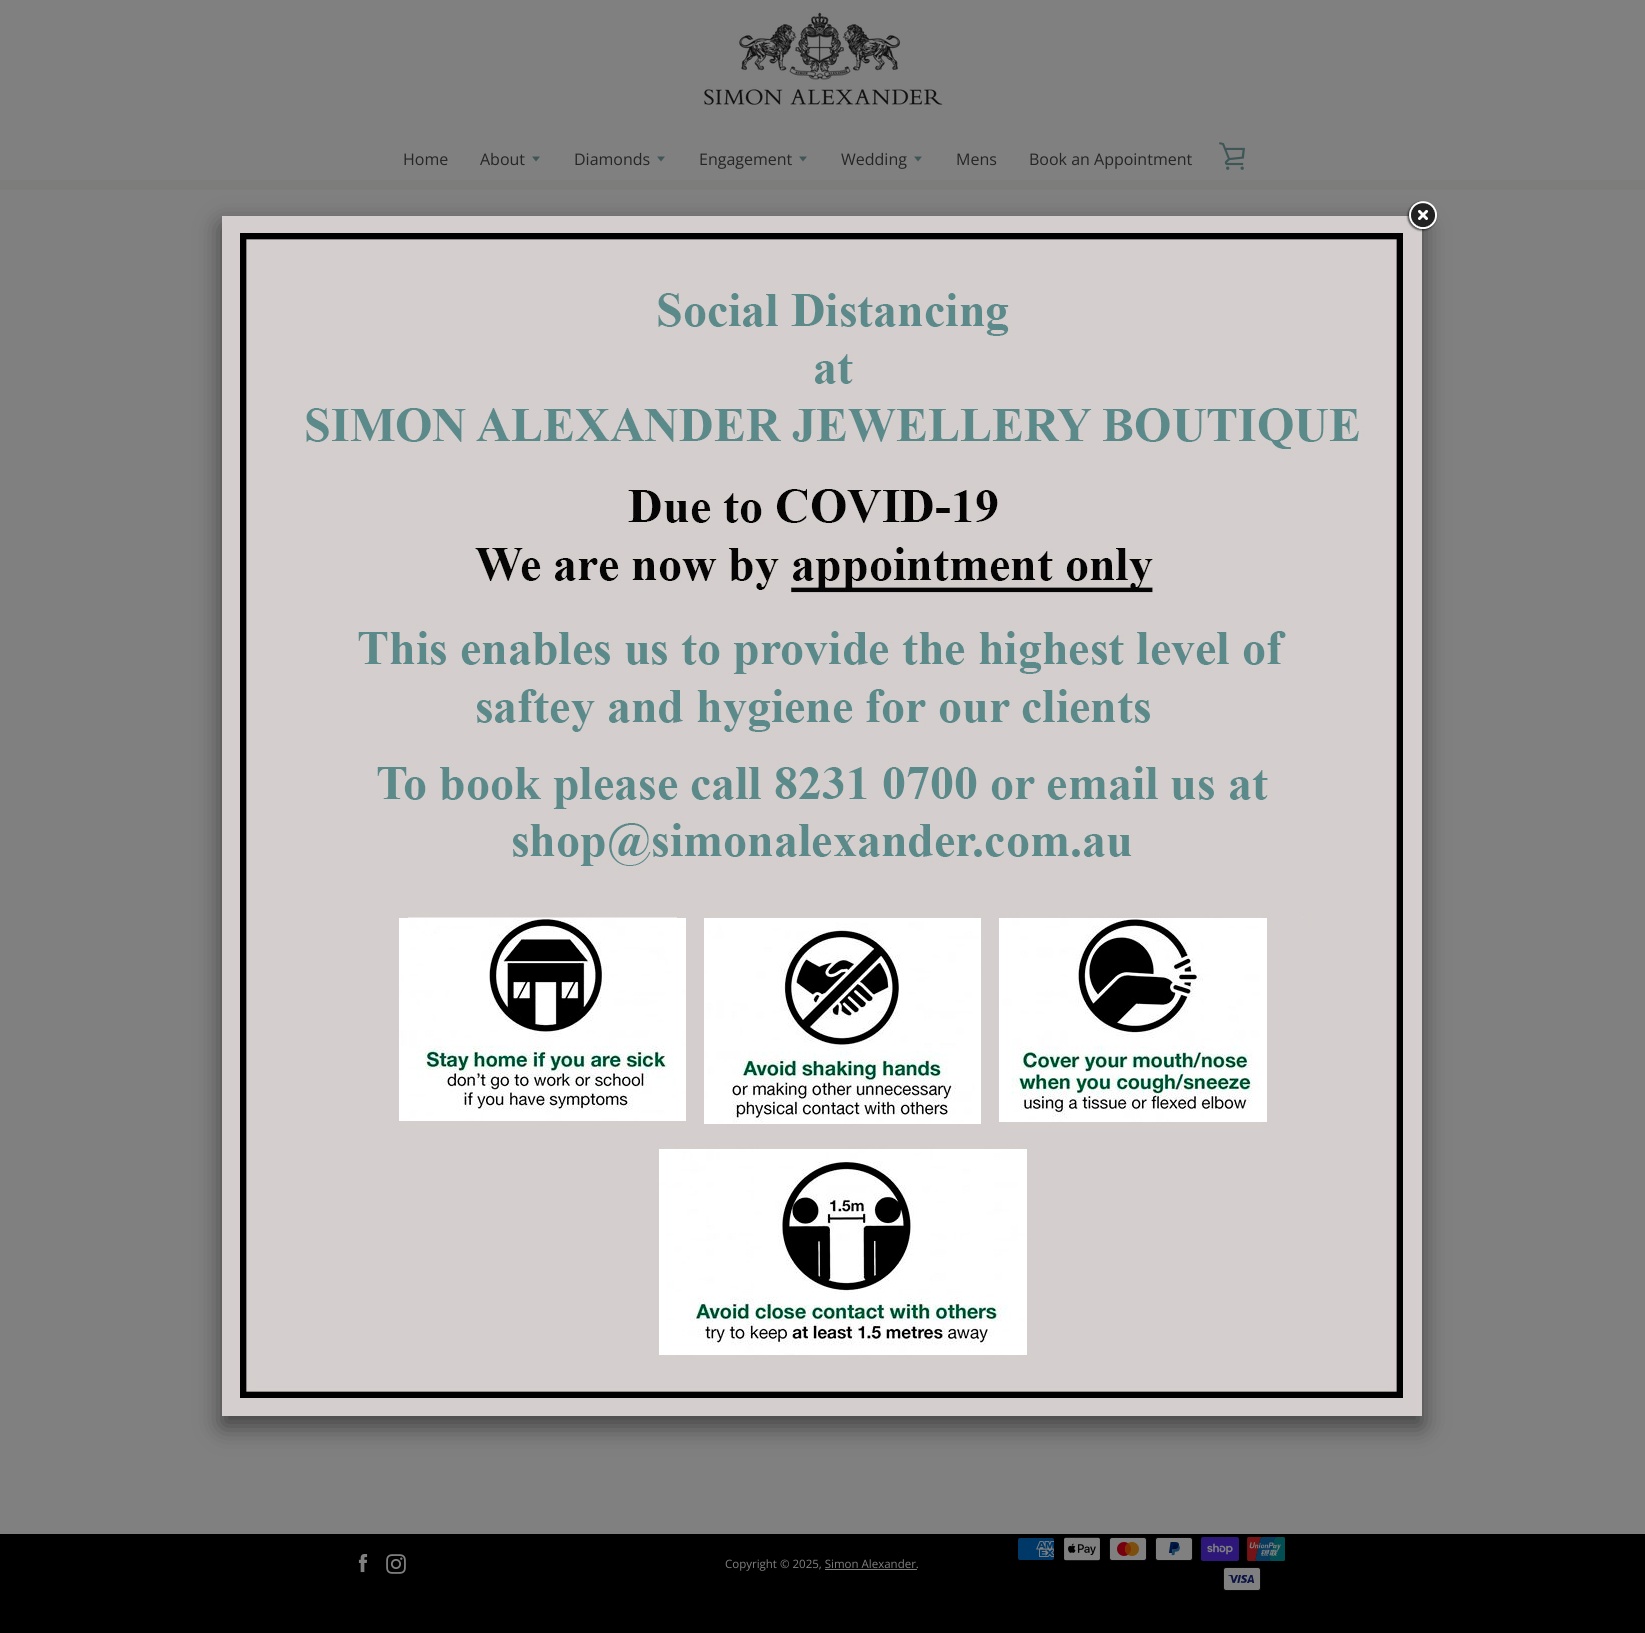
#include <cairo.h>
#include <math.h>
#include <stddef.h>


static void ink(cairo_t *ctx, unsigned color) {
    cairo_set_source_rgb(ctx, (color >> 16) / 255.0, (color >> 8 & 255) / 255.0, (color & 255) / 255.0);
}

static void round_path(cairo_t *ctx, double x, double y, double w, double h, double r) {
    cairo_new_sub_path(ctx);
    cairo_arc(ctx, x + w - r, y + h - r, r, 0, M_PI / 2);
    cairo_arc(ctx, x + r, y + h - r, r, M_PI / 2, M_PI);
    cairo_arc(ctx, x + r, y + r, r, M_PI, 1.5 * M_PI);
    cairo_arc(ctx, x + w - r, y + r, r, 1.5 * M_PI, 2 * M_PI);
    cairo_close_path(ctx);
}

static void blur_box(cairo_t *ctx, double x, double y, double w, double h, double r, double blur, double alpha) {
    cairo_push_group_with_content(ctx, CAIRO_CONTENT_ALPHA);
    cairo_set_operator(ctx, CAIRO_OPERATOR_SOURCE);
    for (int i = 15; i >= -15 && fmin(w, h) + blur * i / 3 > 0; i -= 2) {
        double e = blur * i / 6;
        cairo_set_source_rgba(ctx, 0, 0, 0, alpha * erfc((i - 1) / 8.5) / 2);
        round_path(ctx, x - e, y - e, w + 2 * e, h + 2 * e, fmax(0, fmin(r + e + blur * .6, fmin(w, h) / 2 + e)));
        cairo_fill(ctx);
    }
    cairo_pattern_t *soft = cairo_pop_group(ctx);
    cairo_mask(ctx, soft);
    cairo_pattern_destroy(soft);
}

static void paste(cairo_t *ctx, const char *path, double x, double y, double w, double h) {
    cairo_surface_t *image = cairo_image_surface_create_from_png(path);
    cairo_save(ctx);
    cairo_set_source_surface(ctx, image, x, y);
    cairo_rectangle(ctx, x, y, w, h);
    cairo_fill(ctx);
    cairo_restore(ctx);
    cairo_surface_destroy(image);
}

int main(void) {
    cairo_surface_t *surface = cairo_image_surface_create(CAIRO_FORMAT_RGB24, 1645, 1633);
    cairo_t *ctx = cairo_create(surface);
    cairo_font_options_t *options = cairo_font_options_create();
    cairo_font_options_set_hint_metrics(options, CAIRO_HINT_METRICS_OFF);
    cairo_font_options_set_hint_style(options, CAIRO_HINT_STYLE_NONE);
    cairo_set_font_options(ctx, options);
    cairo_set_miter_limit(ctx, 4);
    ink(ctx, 0x7D7D7B);
    cairo_paint(ctx);
    ink(ctx, 0x808080);
    cairo_rectangle(ctx, 0, 0, 1645, 180);
    cairo_fill(ctx);
    paste(ctx, "media/1.png", 704, 12, 239, 93);
    cairo_select_font_face(ctx, "Open Sans", CAIRO_FONT_SLANT_NORMAL, CAIRO_FONT_WEIGHT_NORMAL);
    cairo_set_font_size(ctx, 16);
    ink(ctx, 0x252525);
    cairo_move_to(ctx, 403, 165);
    cairo_show_text(ctx, "Home");
    cairo_move_to(ctx, 480, 165);
    cairo_show_text(ctx, "About");
    ink(ctx, 0x3F5656);
    cairo_new_path(ctx);
    cairo_move_to(ctx, 532, 156.5);
    cairo_line_to(ctx, 536, 161.5);
    cairo_line_to(ctx, 540, 156.5);
    cairo_close_path(ctx);
    cairo_fill(ctx);
    ink(ctx, 0x252525);
    cairo_move_to(ctx, 574, 165);
    cairo_show_text(ctx, "Diamonds");
    ink(ctx, 0x3F5656);
    cairo_new_path(ctx);
    cairo_move_to(ctx, 657, 156.5);
    cairo_line_to(ctx, 661, 161.5);
    cairo_line_to(ctx, 665, 156.5);
    cairo_close_path(ctx);
    cairo_fill(ctx);
    ink(ctx, 0x252525);
    cairo_move_to(ctx, 699, 165);
    cairo_show_text(ctx, "Engagement");
    ink(ctx, 0x3F5656);
    cairo_new_path(ctx);
    cairo_move_to(ctx, 799, 156.5);
    cairo_line_to(ctx, 803, 161.5);
    cairo_line_to(ctx, 807, 156.5);
    cairo_close_path(ctx);
    cairo_fill(ctx);
    ink(ctx, 0x252525);
    cairo_move_to(ctx, 841, 165);
    cairo_show_text(ctx, "Wedding");
    ink(ctx, 0x3F5656);
    cairo_new_path(ctx);
    cairo_move_to(ctx, 914, 156.5);
    cairo_line_to(ctx, 918, 161.5);
    cairo_line_to(ctx, 922, 156.5);
    cairo_close_path(ctx);
    cairo_fill(ctx);
    ink(ctx, 0x252525);
    cairo_move_to(ctx, 956, 165);
    cairo_show_text(ctx, "Mens");
    cairo_move_to(ctx, 1029, 165);
    cairo_show_text(ctx, "Book an Appointment");
    paste(ctx, "media/2.png", 1219, 142, 26, 28);
    ink(ctx, 0x808080);
    cairo_rectangle(ctx, 0, 190, 1645, 1344);
    cairo_fill(ctx);
    ink(ctx, 0x000000);
    blur_box(ctx, 222, 226, 1200, 1200, 0, 12.5, 0.5);
    paste(ctx, "media/4.png", 222, 216, 1200, 1200);
    paste(ctx, "media/3.png", 1406, 200, 32, 32);
    ink(ctx, 0x000000);
    cairo_rectangle(ctx, 0, 1534, 1645, 99);
    cairo_fill(ctx);
    paste(ctx, "media/5.png", 358, 1554, 10, 19);
    paste(ctx, "media/6.png", 386, 1554, 20, 20);
    cairo_set_font_size(ctx, 11.5);
    ink(ctx, 0x808080);
    cairo_move_to(ctx, 725, 1568);
    cairo_show_text(ctx, "Copyright © 2025, Simon Alexander.");
    cairo_rectangle(ctx, 825, 1569, 92, 1);
    cairo_fill(ctx);
    paste(ctx, "media/7.png", 1018, 1538, 36, 22);
    paste(ctx, "media/8.png", 1064, 1537, 36, 24);
    paste(ctx, "media/9.png", 1109, 1537, 38, 24);
    paste(ctx, "media/10.png", 1155, 1537, 38, 24);
    paste(ctx, "media/11.png", 1201, 1537, 38, 24);
    paste(ctx, "media/12.png", 1247, 1537, 38, 24);
    paste(ctx, "media/13.png", 1223, 1567, 38, 24);
    cairo_surface_write_to_png(surface, "image.png");
    cairo_font_options_destroy(options);
    cairo_destroy(ctx);
    cairo_surface_destroy(surface);
    return 0;
}
